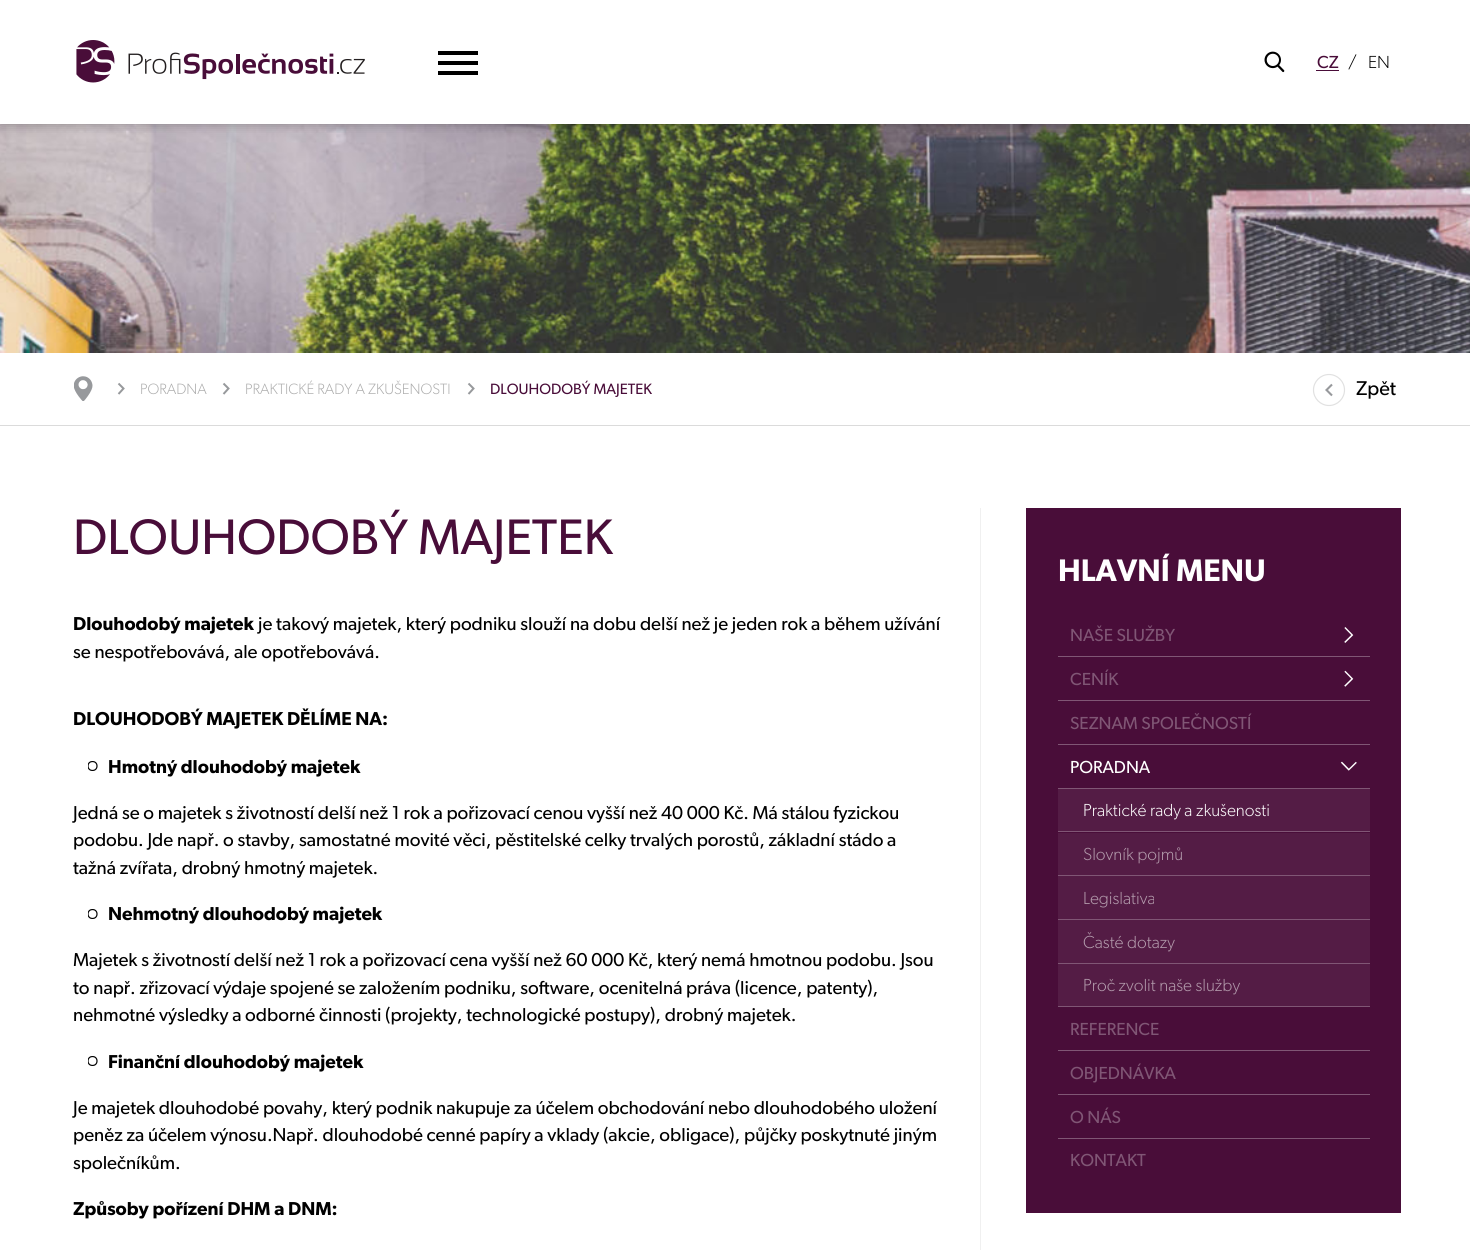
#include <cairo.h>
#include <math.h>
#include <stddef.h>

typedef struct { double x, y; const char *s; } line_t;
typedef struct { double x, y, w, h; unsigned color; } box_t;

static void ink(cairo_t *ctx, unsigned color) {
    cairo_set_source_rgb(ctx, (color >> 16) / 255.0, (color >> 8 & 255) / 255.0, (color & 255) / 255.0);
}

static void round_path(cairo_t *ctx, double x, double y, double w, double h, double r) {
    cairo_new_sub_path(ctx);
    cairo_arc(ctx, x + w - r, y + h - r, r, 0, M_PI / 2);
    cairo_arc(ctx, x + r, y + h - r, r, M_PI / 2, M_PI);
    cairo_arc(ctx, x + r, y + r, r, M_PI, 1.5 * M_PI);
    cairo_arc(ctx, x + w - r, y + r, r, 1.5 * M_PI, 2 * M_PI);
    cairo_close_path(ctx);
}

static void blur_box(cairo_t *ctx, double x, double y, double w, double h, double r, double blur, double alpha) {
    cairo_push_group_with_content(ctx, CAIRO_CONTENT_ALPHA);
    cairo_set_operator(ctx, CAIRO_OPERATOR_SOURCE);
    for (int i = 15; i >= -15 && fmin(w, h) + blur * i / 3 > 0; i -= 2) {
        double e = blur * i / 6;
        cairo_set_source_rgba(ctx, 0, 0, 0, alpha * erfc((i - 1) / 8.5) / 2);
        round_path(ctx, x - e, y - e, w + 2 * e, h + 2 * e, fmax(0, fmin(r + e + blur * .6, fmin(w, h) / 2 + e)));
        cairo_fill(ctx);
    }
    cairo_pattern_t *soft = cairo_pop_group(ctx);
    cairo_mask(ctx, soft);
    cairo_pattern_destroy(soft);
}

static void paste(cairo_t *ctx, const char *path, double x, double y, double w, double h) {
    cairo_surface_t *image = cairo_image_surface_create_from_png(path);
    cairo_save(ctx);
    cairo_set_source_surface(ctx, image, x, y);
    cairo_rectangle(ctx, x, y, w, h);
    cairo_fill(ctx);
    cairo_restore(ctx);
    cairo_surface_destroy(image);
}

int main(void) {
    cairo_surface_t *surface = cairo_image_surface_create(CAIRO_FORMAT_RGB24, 1470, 1250);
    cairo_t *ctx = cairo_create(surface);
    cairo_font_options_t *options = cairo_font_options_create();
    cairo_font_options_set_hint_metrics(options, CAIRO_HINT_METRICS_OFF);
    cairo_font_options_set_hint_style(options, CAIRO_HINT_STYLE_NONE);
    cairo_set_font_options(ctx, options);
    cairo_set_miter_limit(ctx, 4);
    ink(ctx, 0xFFFFFF);
    cairo_paint(ctx);
    paste(ctx, "media/3.png", 0, 124, 1470, 229);
    ink(ctx, 0x000000);
    blur_box(ctx, 0, 0, 1470, 124, 0, 6, 0.3);
    ink(ctx, 0xFFFFFF);
    cairo_rectangle(ctx, 0, 0, 1470, 124);
    cairo_fill(ctx);
    paste(ctx, "media/1.png", 76, 40, 289, 43);
    {
        static const box_t items[] = {
            {438, 61, 40, 4, 0x000000},
            {438, 51, 40, 4, 0x000000},
            {438, 71, 40, 4, 0x000000},
        };
        for (size_t i = 0; i < sizeof items / sizeof *items; i++) {
            ink(ctx, items[i].color);
            cairo_rectangle(ctx, items[i].x, items[i].y, items[i].w, items[i].h);
            cairo_fill(ctx);
        }
    }
    paste(ctx, "media/2.png", 1264, 51, 21, 22);
    cairo_select_font_face(ctx, "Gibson", CAIRO_FONT_SLANT_NORMAL, CAIRO_FONT_WEIGHT_NORMAL);
    cairo_set_font_size(ctx, 17.5);
    ink(ctx, 0x490D39);
    cairo_move_to(ctx, 1317, 68);
    cairo_show_text(ctx, "CZ");
    cairo_rectangle(ctx, 1316, 70, 23, 1);
    cairo_fill(ctx);
    cairo_select_font_face(ctx, "Gibson Light", CAIRO_FONT_SLANT_NORMAL, CAIRO_FONT_WEIGHT_NORMAL);
    ink(ctx, 0x000000);
    cairo_move_to(ctx, 1348, 68);
    cairo_show_text(ctx, "/");
    cairo_move_to(ctx, 1368, 68);
    cairo_show_text(ctx, "EN");
    ink(ctx, 0xDBDBDB);
    cairo_rectangle(ctx, 0, 425, 1470, 1);
    cairo_fill(ctx);
    cairo_new_path(ctx);
    cairo_move_to(ctx, 118.5, 383.5);
    cairo_line_to(ctx, 123.5, 388.5);
    cairo_line_to(ctx, 118.5, 394);
    ink(ctx, 0x97999C);
    cairo_stroke(ctx);
    paste(ctx, "media/4.png", 74, 376, 19, 25);
    cairo_new_path(ctx);
    cairo_move_to(ctx, 223.5, 383.5);
    cairo_line_to(ctx, 228.5, 388.5);
    cairo_line_to(ctx, 223.5, 394);
    cairo_stroke(ctx);
    cairo_set_font_size(ctx, 15);
    ink(ctx, 0xADADAD);
    cairo_move_to(ctx, 140, 394);
    cairo_show_text(ctx, "PORADNA");
    cairo_new_path(ctx);
    cairo_move_to(ctx, 468.5, 383.5);
    cairo_line_to(ctx, 473.5, 388.5);
    cairo_line_to(ctx, 468.5, 394);
    ink(ctx, 0x97999C);
    cairo_stroke(ctx);
    ink(ctx, 0xADADAD);
    cairo_move_to(ctx, 245, 394);
    cairo_show_text(ctx, "PRAKTICKÉ RADY A ZKUŠENOSTI");
    cairo_select_font_face(ctx, "Gibson", CAIRO_FONT_SLANT_NORMAL, CAIRO_FONT_WEIGHT_NORMAL);
    ink(ctx, 0x490D39);
    cairo_move_to(ctx, 490, 394);
    cairo_show_text(ctx, "DLOUHODOBÝ MAJETEK");
    cairo_new_path(ctx);
    cairo_move_to(ctx, 1332, 384.5);
    cairo_line_to(ctx, 1326.5, 390);
    cairo_line_to(ctx, 1332, 395.5);
    ink(ctx, 0x97999C);
    cairo_set_line_width(ctx, 2.1);
    cairo_stroke(ctx);
    cairo_new_path(ctx);
    cairo_move_to(ctx, 1329, 374.5);
    cairo_curve_to(ctx, 1320.5, 374.5, 1313.5, 381.5, 1313.5, 390);
    cairo_curve_to(ctx, 1313.5, 398.5, 1320.5, 405.5, 1329, 405.5);
    cairo_curve_to(ctx, 1337.5, 405.5, 1344.5, 398.5, 1344.5, 390);
    cairo_curve_to(ctx, 1344.5, 381.5, 1337.5, 374.5, 1329, 374.5);
    cairo_close_path(ctx);
    ink(ctx, 0xE1E1E1);
    cairo_set_line_width(ctx, 1.2);
    cairo_stroke(ctx);
    cairo_set_font_size(ctx, 20);
    ink(ctx, 0x000000);
    cairo_move_to(ctx, 1356, 395);
    cairo_show_text(ctx, "Zpět");
    cairo_set_font_size(ctx, 50);
    ink(ctx, 0x490D39);
    cairo_move_to(ctx, 73, 554);
    cairo_show_text(ctx, "DLOUHODOBÝ MAJETEK");
    cairo_select_font_face(ctx, "Gibson SemiBold", CAIRO_FONT_SLANT_NORMAL, CAIRO_FONT_WEIGHT_NORMAL);
    cairo_set_font_size(ctx, 18.75);
    ink(ctx, 0x000000);
    cairo_move_to(ctx, 73, 630);
    cairo_show_text(ctx, "Dlouhodobý majetek");
    cairo_select_font_face(ctx, "Gibson", CAIRO_FONT_SLANT_NORMAL, CAIRO_FONT_WEIGHT_NORMAL);
    cairo_move_to(ctx, 258, 630);
    cairo_show_text(ctx, "je takový majetek, který podniku slouží na dobu delší než je jeden rok a během užívání");
    cairo_move_to(ctx, 73, 658);
    cairo_show_text(ctx, "se nespotřebovává, ale opotřebovává.");
    cairo_select_font_face(ctx, "Gibson SemiBold", CAIRO_FONT_SLANT_NORMAL, CAIRO_FONT_WEIGHT_NORMAL);
    cairo_move_to(ctx, 73, 725);
    cairo_show_text(ctx, "DLOUHODOBÝ MAJETEK DĚLÍME NA:");
    cairo_save(ctx);
    cairo_rectangle(ctx, 88, 761, 10, 10);
    cairo_clip(ctx);
    cairo_arc(ctx, 92.5, 766, 4.5, 0, 2 * M_PI);
    cairo_stroke(ctx);
    cairo_restore(ctx);
    cairo_move_to(ctx, 108, 773);
    cairo_show_text(ctx, "Hmotný dlouhodobý majetek");
    cairo_select_font_face(ctx, "Gibson", CAIRO_FONT_SLANT_NORMAL, CAIRO_FONT_WEIGHT_NORMAL);
    {
        static const line_t items[] = {
            {73, 819, "Jedná se o majetek s životností delší než 1 rok a pořizovací cenou vyšší než 40 000 Kč. Má stálou fyzickou"},
            {73, 846, "podobu. Jde např. o stavby, samostatné movité věci, pěstitelské celky trvalých porostů, základní stádo a"},
            {73, 874, "tažná zvířata, drobný hmotný majetek."},
        };
        for (size_t i = 0; i < sizeof items / sizeof *items; i++) {
            cairo_move_to(ctx, items[i].x, items[i].y);
            cairo_show_text(ctx, items[i].s);
        }
    }
    cairo_save(ctx);
    cairo_rectangle(ctx, 88, 909, 10, 10);
    cairo_clip(ctx);
    cairo_arc(ctx, 92.5, 914, 4.5, 0, 2 * M_PI);
    cairo_stroke(ctx);
    cairo_restore(ctx);
    cairo_select_font_face(ctx, "Gibson SemiBold", CAIRO_FONT_SLANT_NORMAL, CAIRO_FONT_WEIGHT_NORMAL);
    cairo_move_to(ctx, 108, 920);
    cairo_show_text(ctx, "Nehmotný dlouhodobý majetek");
    cairo_select_font_face(ctx, "Gibson", CAIRO_FONT_SLANT_NORMAL, CAIRO_FONT_WEIGHT_NORMAL);
    {
        static const line_t items[] = {
            {73, 966, "Majetek s životností delší než 1 rok a pořizovací cena vyšší než 60 000 Kč, který nemá hmotnou podobu. Jsou"},
            {73, 994, "to např. zřizovací výdaje spojené se založením podniku, software, ocenitelná práva (licence, patenty),"},
            {73, 1021, "nehmotné výsledky a odborné činnosti (projekty, technologické postupy), drobný majetek."},
        };
        for (size_t i = 0; i < sizeof items / sizeof *items; i++) {
            cairo_move_to(ctx, items[i].x, items[i].y);
            cairo_show_text(ctx, items[i].s);
        }
    }
    cairo_save(ctx);
    cairo_rectangle(ctx, 88, 1056, 10, 10);
    cairo_clip(ctx);
    cairo_arc(ctx, 92.5, 1061, 4.5, 0, 2 * M_PI);
    cairo_stroke(ctx);
    cairo_restore(ctx);
    cairo_select_font_face(ctx, "Gibson SemiBold", CAIRO_FONT_SLANT_NORMAL, CAIRO_FONT_WEIGHT_NORMAL);
    cairo_move_to(ctx, 108, 1068);
    cairo_show_text(ctx, "Finanční dlouhodobý majetek");
    cairo_select_font_face(ctx, "Gibson", CAIRO_FONT_SLANT_NORMAL, CAIRO_FONT_WEIGHT_NORMAL);
    {
        static const line_t items[] = {
            {73, 1114, "Je majetek dlouhodobé povahy, který podnik nakupuje za účelem obchodování nebo dlouhodobého uložení"},
            {73, 1141, "peněz za účelem výnosu.Např. dlouhodobé cenné papíry a vklady (akcie, obligace), půjčky poskytnuté jiným"},
            {73, 1169, "společníkům."},
        };
        for (size_t i = 0; i < sizeof items / sizeof *items; i++) {
            cairo_move_to(ctx, items[i].x, items[i].y);
            cairo_show_text(ctx, items[i].s);
        }
    }
    cairo_select_font_face(ctx, "Gibson SemiBold", CAIRO_FONT_SLANT_NORMAL, CAIRO_FONT_WEIGHT_NORMAL);
    cairo_move_to(ctx, 73, 1215);
    cairo_show_text(ctx, "Způsoby pořízení DHM a DNM:");
    ink(ctx, 0xF0F0F0);
    cairo_rectangle(ctx, 980, 508, 1, 742);
    cairo_fill(ctx);
    ink(ctx, 0x490D39);
    cairo_rectangle(ctx, 1026, 508, 375, 705);
    cairo_fill(ctx);
    cairo_set_font_size(ctx, 31.25);
    ink(ctx, 0xFFFFFF);
    cairo_move_to(ctx, 1058, 581);
    cairo_show_text(ctx, "HLAVNÍ MENU");
    cairo_select_font_face(ctx, "Gibson", CAIRO_FONT_SLANT_NORMAL, CAIRO_FONT_WEIGHT_NORMAL);
    cairo_set_font_size(ctx, 17.5);
    ink(ctx, 0x805675);
    cairo_move_to(ctx, 1070, 641);
    cairo_show_text(ctx, "NAŠE SLUŽBY");
    paste(ctx, "media/5.png", 1344, 627, 10, 16);
    cairo_rectangle(ctx, 1058, 656, 312, 1);
    cairo_fill(ctx);
    cairo_move_to(ctx, 1070, 685);
    cairo_show_text(ctx, "CENÍK");
    paste(ctx, "media/6.png", 1344, 670, 10, 17);
    cairo_rectangle(ctx, 1058, 700, 312, 1);
    cairo_fill(ctx);
    cairo_move_to(ctx, 1070, 729);
    cairo_show_text(ctx, "SEZNAM SPOLEČNOSTÍ");
    cairo_rectangle(ctx, 1058, 744, 312, 1);
    cairo_fill(ctx);
    ink(ctx, 0xFFFFFF);
    cairo_move_to(ctx, 1070, 773);
    cairo_show_text(ctx, "PORADNA");
    paste(ctx, "media/7.png", 1340, 761, 17, 10);
    ink(ctx, 0x805675);
    cairo_rectangle(ctx, 1058, 788, 312, 1);
    cairo_fill(ctx);
    ink(ctx, 0x541C45);
    cairo_rectangle(ctx, 1058, 789, 312, 42);
    cairo_fill(ctx);
    cairo_select_font_face(ctx, "Gibson Light", CAIRO_FONT_SLANT_NORMAL, CAIRO_FONT_WEIGHT_NORMAL);
    ink(ctx, 0xFFFFFF);
    cairo_move_to(ctx, 1083, 816);
    cairo_show_text(ctx, "Praktické rady a zkušenosti");
    ink(ctx, 0x805675);
    cairo_rectangle(ctx, 1058, 831, 312, 1);
    cairo_fill(ctx);
    ink(ctx, 0x541C45);
    cairo_rectangle(ctx, 1058, 833, 312, 42);
    cairo_fill(ctx);
    ink(ctx, 0xB39BAC);
    cairo_move_to(ctx, 1083, 860);
    cairo_show_text(ctx, "Slovník pojmů");
    ink(ctx, 0x805675);
    cairo_rectangle(ctx, 1058, 875, 312, 1);
    cairo_fill(ctx);
    ink(ctx, 0x541C45);
    cairo_rectangle(ctx, 1058, 876, 312, 43);
    cairo_fill(ctx);
    ink(ctx, 0xB39BAC);
    cairo_move_to(ctx, 1083, 904);
    cairo_show_text(ctx, "Legislativa");
    ink(ctx, 0x805675);
    cairo_rectangle(ctx, 1058, 919, 312, 1);
    cairo_fill(ctx);
    ink(ctx, 0x541C45);
    cairo_rectangle(ctx, 1058, 920, 312, 43);
    cairo_fill(ctx);
    ink(ctx, 0xB39BAC);
    cairo_move_to(ctx, 1083, 948);
    cairo_show_text(ctx, "Časté dotazy");
    ink(ctx, 0x805675);
    cairo_rectangle(ctx, 1058, 963, 312, 1);
    cairo_fill(ctx);
    ink(ctx, 0x541C45);
    cairo_rectangle(ctx, 1058, 964, 312, 42);
    cairo_fill(ctx);
    ink(ctx, 0xB39BAC);
    cairo_move_to(ctx, 1083, 991);
    cairo_show_text(ctx, "Proč zvolit naše služby");
    ink(ctx, 0x805675);
    cairo_rectangle(ctx, 1058, 1006, 312, 1);
    cairo_fill(ctx);
    cairo_select_font_face(ctx, "Gibson", CAIRO_FONT_SLANT_NORMAL, CAIRO_FONT_WEIGHT_NORMAL);
    cairo_move_to(ctx, 1070, 1035);
    cairo_show_text(ctx, "REFERENCE");
    cairo_rectangle(ctx, 1058, 1050, 312, 1);
    cairo_fill(ctx);
    cairo_move_to(ctx, 1070, 1079);
    cairo_show_text(ctx, "OBJEDNÁVKA");
    cairo_rectangle(ctx, 1058, 1094, 312, 1);
    cairo_fill(ctx);
    cairo_move_to(ctx, 1070, 1123);
    cairo_show_text(ctx, "O NÁS");
    cairo_rectangle(ctx, 1058, 1138, 312, 1);
    cairo_fill(ctx);
    cairo_move_to(ctx, 1070, 1166);
    cairo_show_text(ctx, "KONTAKT");
    cairo_surface_write_to_png(surface, "image.png");
    cairo_font_options_destroy(options);
    cairo_destroy(ctx);
    cairo_surface_destroy(surface);
    return 0;
}
